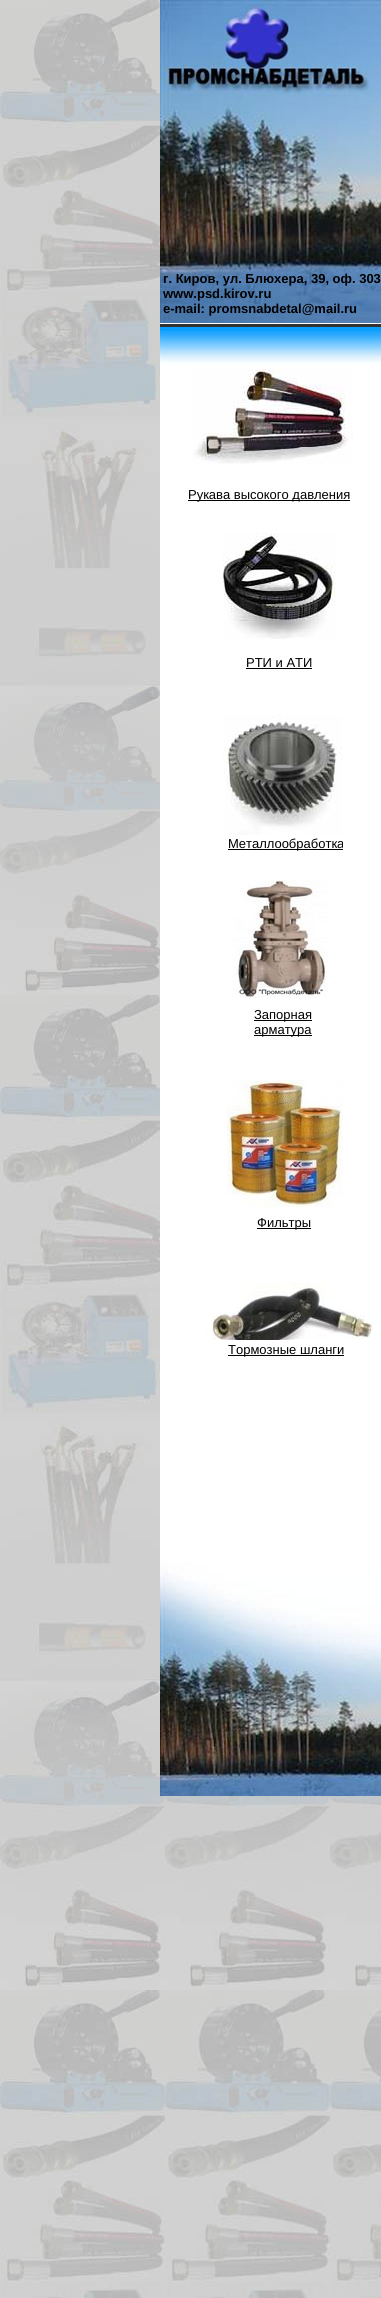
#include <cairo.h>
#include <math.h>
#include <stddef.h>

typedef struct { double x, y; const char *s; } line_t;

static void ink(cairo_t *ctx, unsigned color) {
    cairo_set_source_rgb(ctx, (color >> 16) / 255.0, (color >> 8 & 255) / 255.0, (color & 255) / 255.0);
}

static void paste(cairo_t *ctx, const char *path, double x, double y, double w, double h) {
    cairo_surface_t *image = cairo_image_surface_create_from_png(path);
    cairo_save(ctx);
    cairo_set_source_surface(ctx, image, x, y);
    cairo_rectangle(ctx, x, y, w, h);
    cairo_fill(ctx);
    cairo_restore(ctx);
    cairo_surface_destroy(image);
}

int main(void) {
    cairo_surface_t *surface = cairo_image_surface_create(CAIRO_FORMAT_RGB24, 381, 2298);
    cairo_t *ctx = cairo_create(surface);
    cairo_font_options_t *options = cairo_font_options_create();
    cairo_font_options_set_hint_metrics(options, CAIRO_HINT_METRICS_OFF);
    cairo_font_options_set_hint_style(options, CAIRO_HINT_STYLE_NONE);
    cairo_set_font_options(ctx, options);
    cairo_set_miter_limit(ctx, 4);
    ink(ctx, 0xFFFFFF);
    cairo_paint(ctx);
    paste(ctx, "media/1.png", 0, 0, 381, 2298);
    paste(ctx, "media/2.png", 160, 0, 221, 323);
    cairo_select_font_face(ctx, "Liberation Sans", CAIRO_FONT_SLANT_NORMAL, CAIRO_FONT_WEIGHT_BOLD);
    cairo_set_font_size(ctx, 13);
    ink(ctx, 0x000000);
    {
        static const line_t items[] = {
            {163, 283, "г. Киров, ул. Блюхера, 39, оф. 303"},
            {163, 298, "www.psd.kirov.ru"},
            {163, 313, "e-mail: promsnabdetal@mail.ru"},
        };
        for (size_t i = 0; i < sizeof items / sizeof *items; i++) {
            cairo_move_to(ctx, items[i].x, items[i].y);
            cairo_show_text(ctx, items[i].s);
        }
    }
    ink(ctx, 0xFFFFFF);
    cairo_rectangle(ctx, 160, 323, 221, 1154);
    cairo_fill(ctx);
    ink(ctx, 0x333333);
    cairo_rectangle(ctx, 160, 324, 221, 3);
    cairo_fill(ctx);
    paste(ctx, "media/3.png", 160, 327, 221, 37);
    paste(ctx, "media/4.png", 193, 369, 160, 95);
    ink(ctx, 0x000000);
    cairo_rectangle(ctx, 188, 500, 162, 1);
    cairo_fill(ctx);
    cairo_select_font_face(ctx, "Liberation Sans", CAIRO_FONT_SLANT_NORMAL, CAIRO_FONT_WEIGHT_NORMAL);
    cairo_move_to(ctx, 188, 499);
    cairo_show_text(ctx, "Рукава высокого давления");
    paste(ctx, "media/5.png", 223, 533, 114, 106);
    cairo_move_to(ctx, 246, 667);
    cairo_show_text(ctx, "РТИ и АТИ");
    cairo_rectangle(ctx, 246, 668, 66, 1);
    cairo_fill(ctx);
    paste(ctx, "media/6.png", 223, 715, 119, 120);
    cairo_rectangle(ctx, 228, 849, 115, 1);
    cairo_fill(ctx);
    cairo_save(ctx);
    cairo_rectangle(ctx, 228, 836, 115, 21);
    cairo_clip(ctx);
    cairo_move_to(ctx, 228, 848);
    cairo_show_text(ctx, "Металлообработка");
    cairo_restore(ctx);
    paste(ctx, "media/7.png", 232, 880, 96, 118);
    cairo_rectangle(ctx, 254, 1020, 58, 1);
    cairo_fill(ctx);
    cairo_move_to(ctx, 254, 1019);
    cairo_show_text(ctx, "Запорная");
    cairo_rectangle(ctx, 254, 1035, 58, 1);
    cairo_fill(ctx);
    cairo_move_to(ctx, 254, 1034);
    cairo_show_text(ctx, "арматура");
    paste(ctx, "media/8.png", 227, 1080, 116, 127);
    cairo_rectangle(ctx, 257, 1228, 54, 1);
    cairo_fill(ctx);
    cairo_move_to(ctx, 257, 1227);
    cairo_show_text(ctx, "Фильтры");
    paste(ctx, "media/9.png", 205, 1283, 168, 57);
    cairo_rectangle(ctx, 228, 1355, 116, 1);
    cairo_fill(ctx);
    cairo_move_to(ctx, 228, 1354);
    cairo_show_text(ctx, "Тормозные шланги");
    paste(ctx, "media/10.png", 160, 1477, 221, 319);
    cairo_surface_write_to_png(surface, "image.png");
    cairo_font_options_destroy(options);
    cairo_destroy(ctx);
    cairo_surface_destroy(surface);
    return 0;
}
